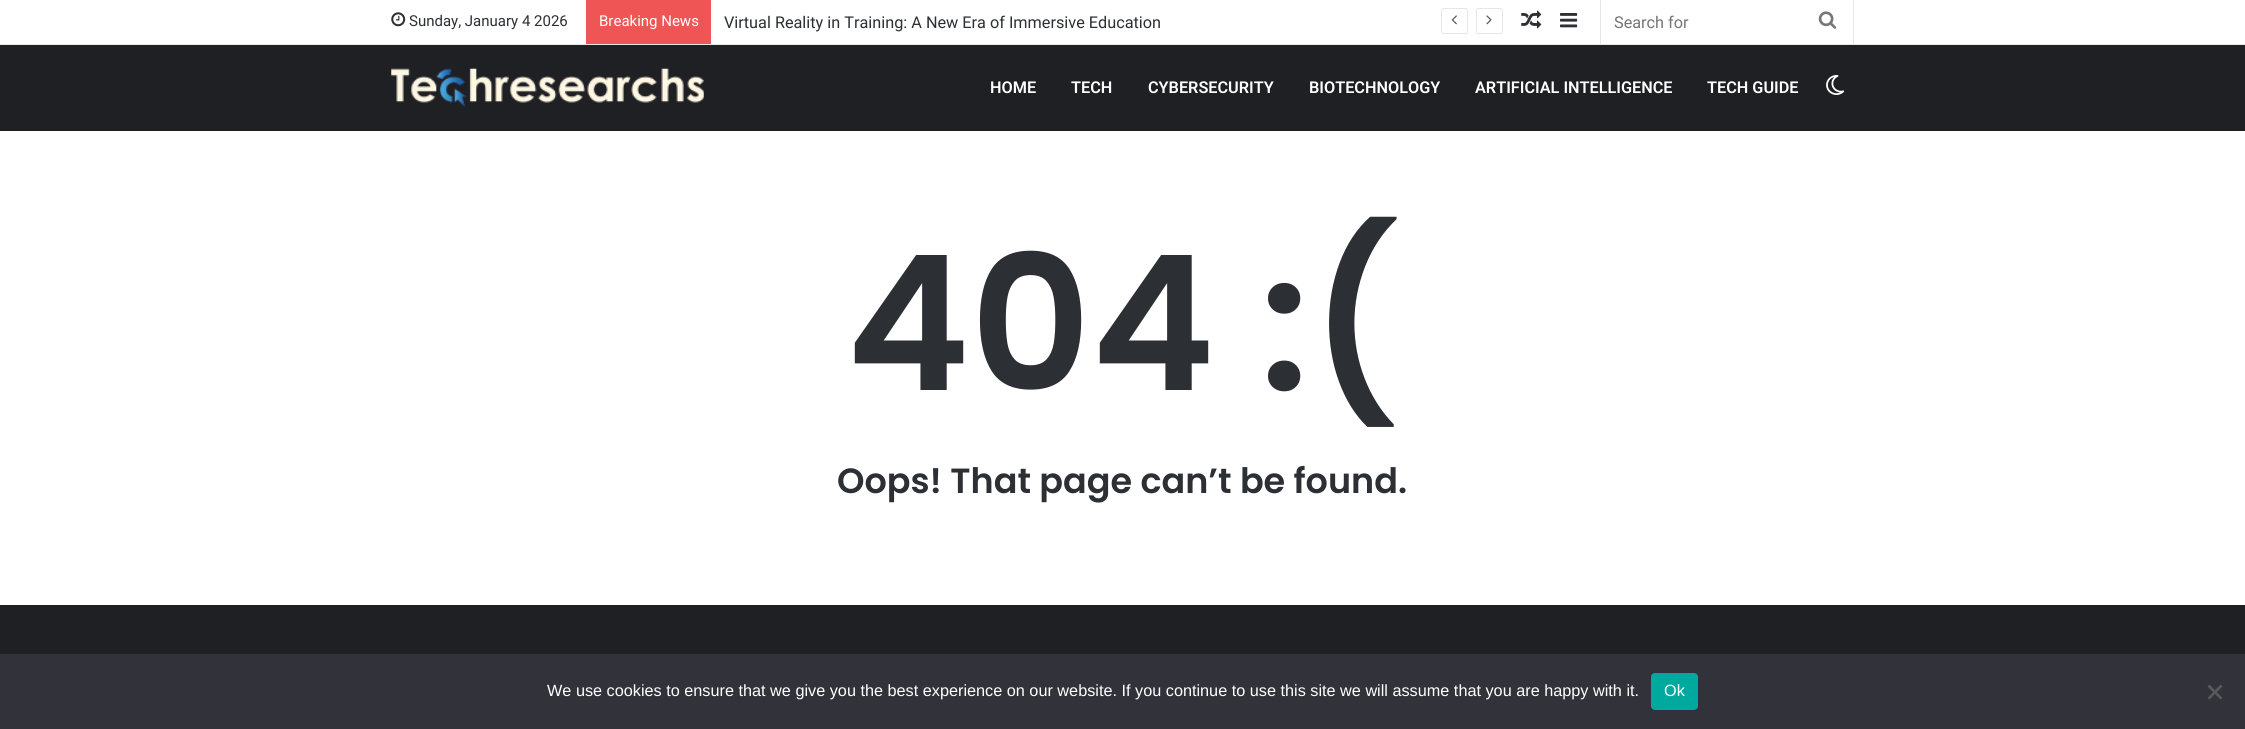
#include <cairo.h>
#include <math.h>
#include <stddef.h>

typedef struct { double x, y; const char *s; } line_t;

static void ink(cairo_t *ctx, unsigned color) {
    cairo_set_source_rgb(ctx, (color >> 16) / 255.0, (color >> 8 & 255) / 255.0, (color & 255) / 255.0);
}

static void round_path(cairo_t *ctx, double x, double y, double w, double h, double r) {
    cairo_new_sub_path(ctx);
    cairo_arc(ctx, x + w - r, y + h - r, r, 0, M_PI / 2);
    cairo_arc(ctx, x + r, y + h - r, r, M_PI / 2, M_PI);
    cairo_arc(ctx, x + r, y + r, r, M_PI, 1.5 * M_PI);
    cairo_arc(ctx, x + w - r, y + r, r, 1.5 * M_PI, 2 * M_PI);
    cairo_close_path(ctx);
}

static void paste(cairo_t *ctx, const char *path, double x, double y, double w, double h) {
    cairo_surface_t *image = cairo_image_surface_create_from_png(path);
    cairo_save(ctx);
    cairo_set_source_surface(ctx, image, x, y);
    cairo_rectangle(ctx, x, y, w, h);
    cairo_fill(ctx);
    cairo_restore(ctx);
    cairo_surface_destroy(image);
}

int main(void) {
    cairo_surface_t *surface = cairo_image_surface_create(CAIRO_FORMAT_RGB24, 2245, 729);
    cairo_t *ctx = cairo_create(surface);
    cairo_font_options_t *options = cairo_font_options_create();
    cairo_font_options_set_hint_metrics(options, CAIRO_HINT_METRICS_OFF);
    cairo_font_options_set_hint_style(options, CAIRO_HINT_STYLE_NONE);
    cairo_set_font_options(ctx, options);
    cairo_set_miter_limit(ctx, 4);
    ink(ctx, 0xFFFFFF);
    cairo_paint(ctx);
    ink(ctx, 0xE6E6E6);
    cairo_rectangle(ctx, 0, 44, 2245, 1);
    cairo_fill(ctx);
    paste(ctx, "media/1.png", 391, 12, 15, 15);
    cairo_select_font_face(ctx, "Roboto", CAIRO_FONT_SLANT_NORMAL, CAIRO_FONT_WEIGHT_NORMAL);
    cairo_set_font_size(ctx, 15);
    ink(ctx, 0x2C2F34);
    cairo_move_to(ctx, 409, 26);
    cairo_show_text(ctx, "Sunday, January 4 2026");
    ink(ctx, 0xF05555);
    cairo_rectangle(ctx, 586, 0, 125, 44);
    cairo_fill(ctx);
    ink(ctx, 0xFFFFFF);
    cairo_move_to(ctx, 599, 26);
    cairo_show_text(ctx, "Breaking News");
    cairo_set_font_size(ctx, 16.25);
    ink(ctx, 0x2C2F34);
    cairo_move_to(ctx, 724, 28);
    cairo_show_text(ctx, "Virtual Reality in Training: A New Era of Immersive Education");
    round_path(ctx, 1441.5, 8.5, 26, 25, 2);
    ink(ctx, 0xE6E6E6);
    cairo_set_line_width(ctx, 1);
    cairo_stroke(ctx);
    paste(ctx, "media/2.png", 1451, 15, 6, 10);
    round_path(ctx, 1476.5, 8.5, 26, 25, 2);
    cairo_stroke(ctx);
    paste(ctx, "media/3.png", 1486, 15, 6, 10);
    paste(ctx, "media/4.png", 1521, 10, 21, 19);
    paste(ctx, "media/5.png", 1560, 13, 18, 15);
    cairo_rectangle(ctx, 1853, 0, 1, 44);
    cairo_fill(ctx);
    cairo_rectangle(ctx, 1600, 0, 1, 44);
    cairo_fill(ctx);
    ink(ctx, 0x757575);
    cairo_move_to(ctx, 1614, 28);
    cairo_show_text(ctx, "Search for");
    paste(ctx, "media/6.png", 1818, 11, 19, 18);
    ink(ctx, 0x1F2024);
    cairo_rectangle(ctx, 0, 45, 2245, 86);
    cairo_fill(ctx);
    paste(ctx, "media/7.png", 391, 68, 313, 39);
    cairo_select_font_face(ctx, "Roboto SemiBold", CAIRO_FONT_SLANT_NORMAL, CAIRO_FONT_WEIGHT_NORMAL);
    ink(ctx, 0xFFFFFF);
    {
        static const line_t items[] = {
            {990, 93, "HOME"},
            {1071, 93, "TECH"},
            {1148, 93, "CYBERSECURITY"},
            {1309, 93, "BIOTECHNOLOGY"},
            {1475, 93, "ARTIFICIAL INTELLIGENCE"},
            {1707, 93, "TECH GUIDE"},
        };
        for (size_t i = 0; i < sizeof items / sizeof *items; i++) {
            cairo_move_to(ctx, items[i].x, items[i].y);
            cairo_show_text(ctx, items[i].s);
        }
    }
    paste(ctx, "media/8.png", 1826, 75, 19, 20);
    cairo_select_font_face(ctx, "Poppins SemiBold", CAIRO_FONT_SLANT_NORMAL, CAIRO_FONT_WEIGHT_NORMAL);
    cairo_set_font_size(ctx, 187.5);
    ink(ctx, 0x2C2F34);
    cairo_move_to(ctx, 846, 390);
    cairo_show_text(ctx, "404 :(");
    cairo_set_font_size(ctx, 35);
    cairo_move_to(ctx, 837, 493);
    cairo_show_text(ctx, "Oops! That page can’t be found.");
    ink(ctx, 0x1F2024);
    cairo_rectangle(ctx, 0, 605, 2245, 49);
    cairo_fill(ctx);
    ink(ctx, 0x32323A);
    cairo_rectangle(ctx, 0, 654, 2245, 75);
    cairo_fill(ctx);
    cairo_select_font_face(ctx, "Liberation Sans", CAIRO_FONT_SLANT_NORMAL, CAIRO_FONT_WEIGHT_NORMAL);
    cairo_set_font_size(ctx, 16.25);
    ink(ctx, 0xFFFFFF);
    cairo_move_to(ctx, 547, 696);
    cairo_show_text(ctx, "We use cookies to ensure that we give you the best experience on our website. If you continue to use this site we will assume that you are happy with it.");
    ink(ctx, 0x00A99D);
    round_path(ctx, 1651, 673, 47, 37, 4);
    cairo_fill(ctx);
    ink(ctx, 0xFFFFFF);
    cairo_move_to(ctx, 1664, 696);
    cairo_show_text(ctx, "Ok");
    ink(ctx, 0x59595D);
    cairo_new_path(ctx);
    cairo_move_to(ctx, 2220.5, 684.5);
    cairo_line_to(ctx, 2222.5, 686.5);
    cairo_line_to(ctx, 2209.5, 699.5);
    cairo_line_to(ctx, 2207.5, 698);
    cairo_close_path(ctx);
    cairo_fill(ctx);
    cairo_new_path(ctx);
    cairo_move_to(ctx, 2207.5, 686.5);
    cairo_line_to(ctx, 2209.5, 684.5);
    cairo_line_to(ctx, 2222.5, 698);
    cairo_line_to(ctx, 2220.5, 699.5);
    cairo_close_path(ctx);
    cairo_fill(ctx);
    cairo_surface_write_to_png(surface, "image.png");
    cairo_font_options_destroy(options);
    cairo_destroy(ctx);
    cairo_surface_destroy(surface);
    return 0;
}
